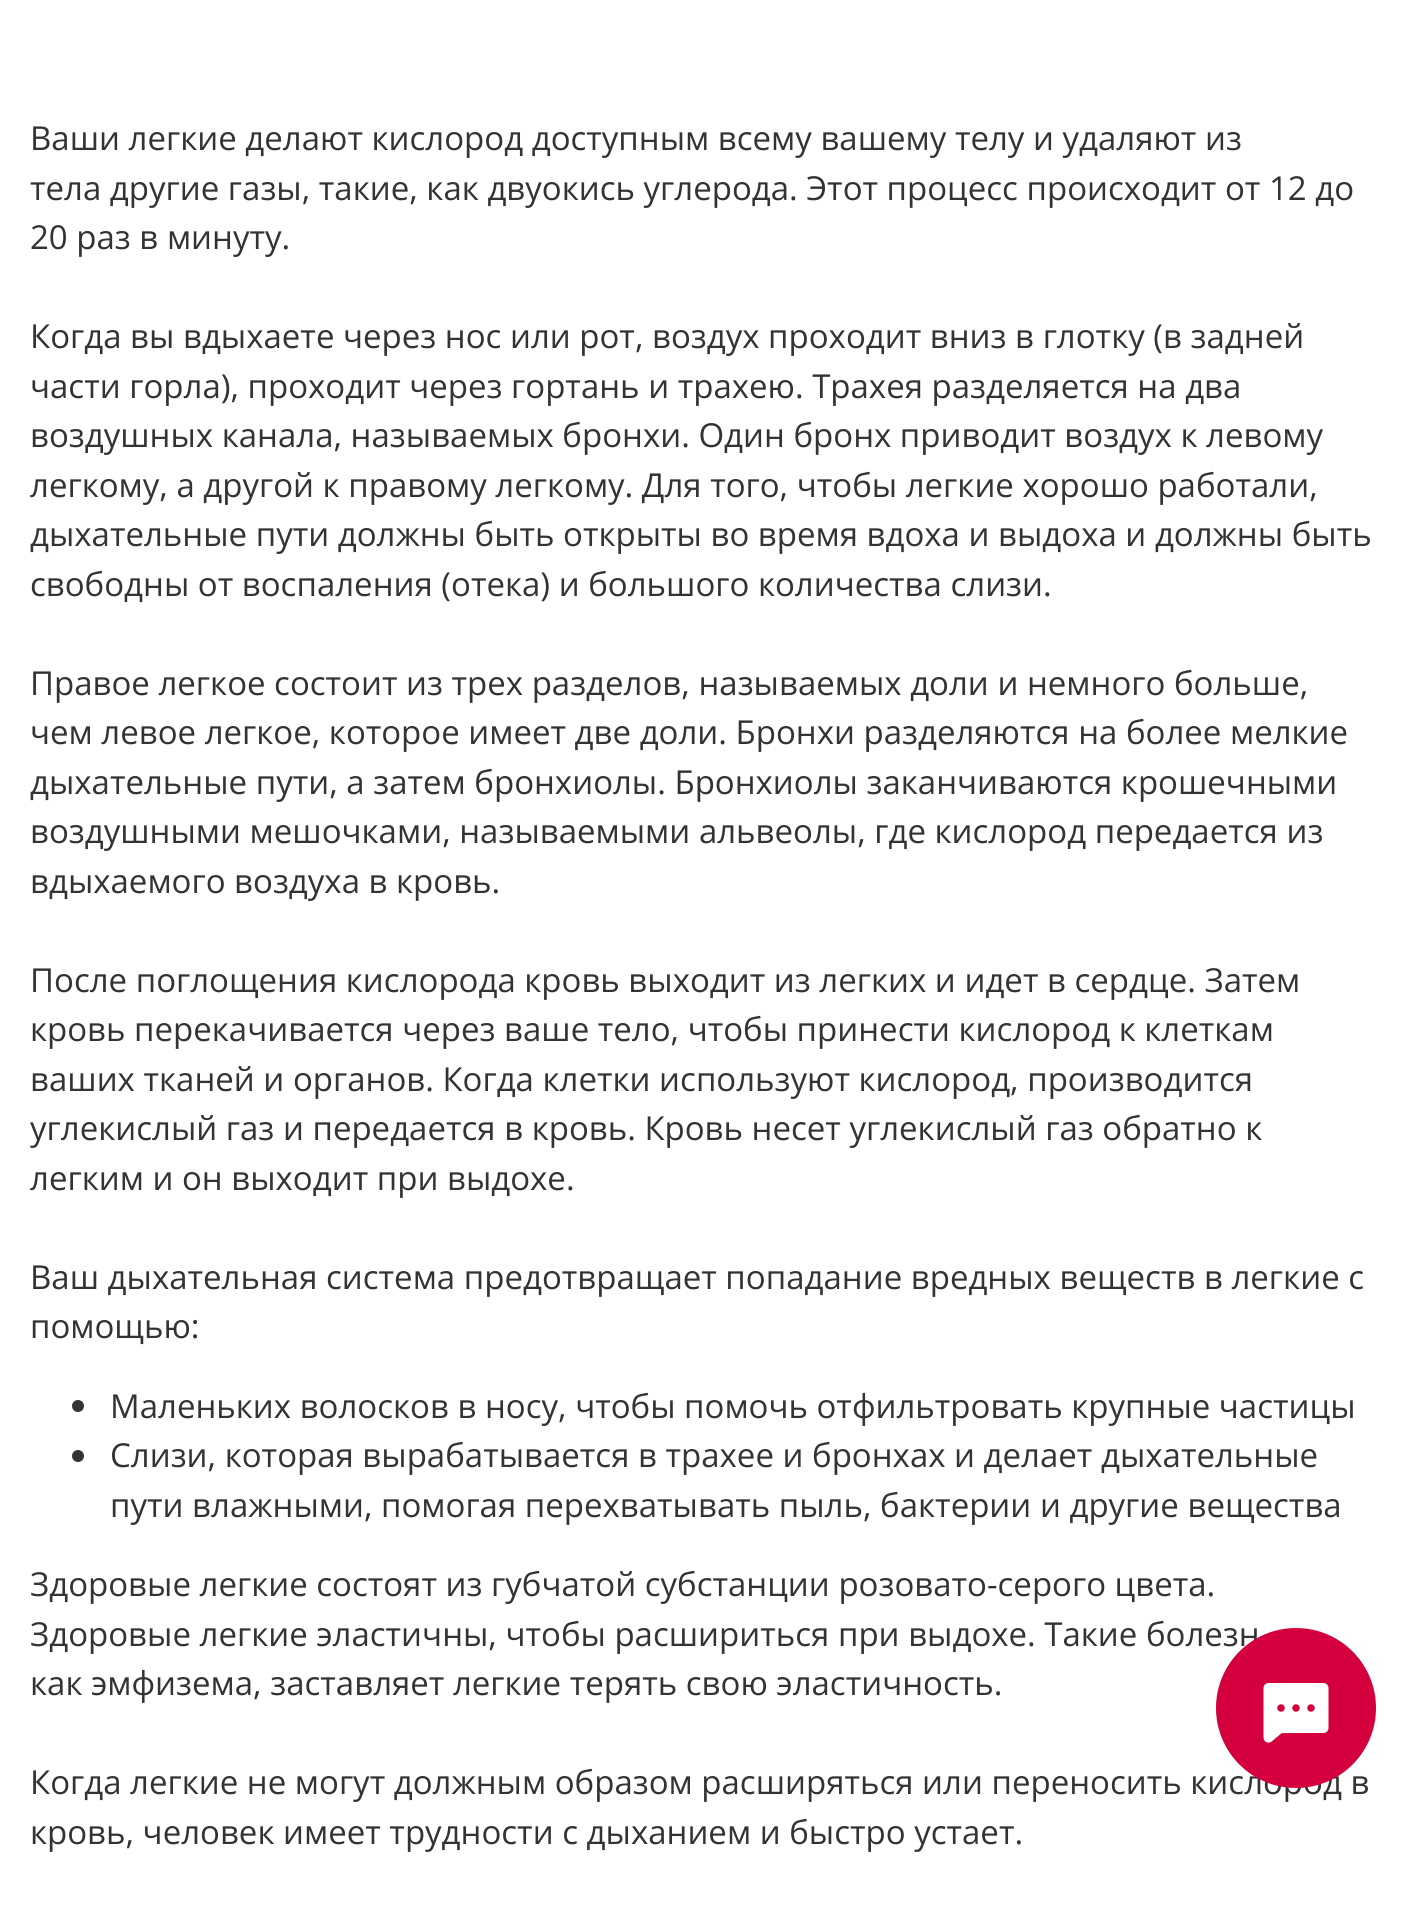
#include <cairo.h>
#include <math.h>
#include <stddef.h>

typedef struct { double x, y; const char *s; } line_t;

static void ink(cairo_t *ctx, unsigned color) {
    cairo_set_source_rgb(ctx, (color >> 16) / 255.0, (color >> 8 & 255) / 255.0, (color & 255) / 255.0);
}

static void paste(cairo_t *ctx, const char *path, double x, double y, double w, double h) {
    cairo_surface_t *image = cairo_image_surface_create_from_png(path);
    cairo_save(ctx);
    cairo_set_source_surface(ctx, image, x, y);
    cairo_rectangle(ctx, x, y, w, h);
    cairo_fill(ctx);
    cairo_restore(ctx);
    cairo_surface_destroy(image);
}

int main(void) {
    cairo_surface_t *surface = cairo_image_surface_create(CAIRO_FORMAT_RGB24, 1405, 1928);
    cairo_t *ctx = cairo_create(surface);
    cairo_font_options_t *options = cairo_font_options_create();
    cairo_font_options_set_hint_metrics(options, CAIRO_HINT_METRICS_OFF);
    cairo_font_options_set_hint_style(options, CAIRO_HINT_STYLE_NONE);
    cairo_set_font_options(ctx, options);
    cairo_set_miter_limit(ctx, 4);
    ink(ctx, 0xFFFFFF);
    cairo_paint(ctx);
    cairo_select_font_face(ctx, "Open Sans", CAIRO_FONT_SLANT_NORMAL, CAIRO_FONT_WEIGHT_NORMAL);
    cairo_set_font_size(ctx, 33);
    ink(ctx, 0x333333);
    {
        static const line_t items[] = {
            {30, 150, "Ваши легкие делают кислород доступным всему вашему телу и удаляют из"},
            {30, 200, "тела другие газы, такие, как двуокись углерода. Этот процесс происходит от 12 до"},
            {30, 249, "20 раз в минуту."},
            {30, 348, "Когда вы вдыхаете через нос или рот, воздух проходит вниз в глотку (в задней"},
            {30, 398, "части горла), проходит через гортань и трахею. Трахея разделяется на два"},
            {30, 447, "воздушных канала, называемых бронхи. Один бронх приводит воздух к левому"},
            {30, 497, "легкому, а другой к правому легкому. Для того, чтобы легкие хорошо работали,"},
            {30, 546, "дыхательные пути должны быть открыты во время вдоха и выдоха и должны быть"},
            {30, 596, "свободны от воспаления (отека) и большого количества слизи."},
            {30, 695, "Правое легкое состоит из трех разделов, называемых доли и немного больше,"},
            {30, 744, "чем левое легкое, которое имеет две доли. Бронхи разделяются на более мелкие"},
            {30, 794, "дыхательные пути, а затем бронхиолы. Бронхиолы заканчиваются крошечными"},
            {30, 843, "воздушными мешочками, называемыми альвеолы, где кислород передается из"},
            {30, 893, "вдыхаемого воздуха в кровь."},
            {30, 992, "После поглощения кислорода кровь выходит из легких и идет в сердце. Затем"},
            {30, 1041, "кровь перекачивается через ваше тело, чтобы принести кислород к клеткам"},
            {30, 1091, "ваших тканей и органов. Когда клетки используют кислород, производится"},
            {30, 1140, "углекислый газ и передается в кровь. Кровь несет углекислый газ обратно к"},
            {30, 1190, "легким и он выходит при выдохе."},
            {30, 1289, "Ваш дыхательная система предотвращает попадание вредных веществ в легкие с"},
            {30, 1338, "помощью:"},
        };
        for (size_t i = 0; i < sizeof items / sizeof *items; i++) {
            cairo_move_to(ctx, items[i].x, items[i].y);
            cairo_show_text(ctx, items[i].s);
        }
    }
    cairo_new_path(ctx);
    cairo_arc(ctx, 78, 1406, 6, 0, 2 * M_PI);
    cairo_fill(ctx);
    cairo_move_to(ctx, 110, 1418);
    cairo_show_text(ctx, "Маленьких волосков в носу, чтобы помочь отфильтровать крупные частицы");
    cairo_new_path(ctx);
    cairo_arc(ctx, 78, 1456, 6, 0, 2 * M_PI);
    cairo_fill(ctx);
    {
        static const line_t items[] = {
            {110, 1467, "Слизи, которая вырабатывается в трахее и бронхах и делает дыхательные"},
            {110, 1517, "пути влажными, помогая перехватывать пыль, бактерии и другие вещества"},
            {30, 1596, "Здоровые легкие состоят из губчатой субстанции розовато-серого цвета."},
            {30, 1646, "Здоровые легкие эластичны, чтобы расшириться при выдохе. Такие болезн"},
            {30, 1695, "как эмфизема, заставляет легкие терять свою эластичность."},
            {30, 1794, "Когда легкие не могут должным образом расширяться или переносить кислород в"},
            {30, 1844, "кровь, человек имеет трудности с дыханием и быстро устает."},
        };
        for (size_t i = 0; i < sizeof items / sizeof *items; i++) {
            cairo_move_to(ctx, items[i].x, items[i].y);
            cairo_show_text(ctx, items[i].s);
        }
    }
    ink(ctx, 0xD4003E);
    cairo_new_path(ctx);
    cairo_arc(ctx, 1296, 1708, 80, 0, 2 * M_PI);
    cairo_fill(ctx);
    paste(ctx, "media/1.png", 1263, 1683, 66, 60);
    cairo_surface_write_to_png(surface, "image.png");
    cairo_font_options_destroy(options);
    cairo_destroy(ctx);
    cairo_surface_destroy(surface);
    return 0;
}
